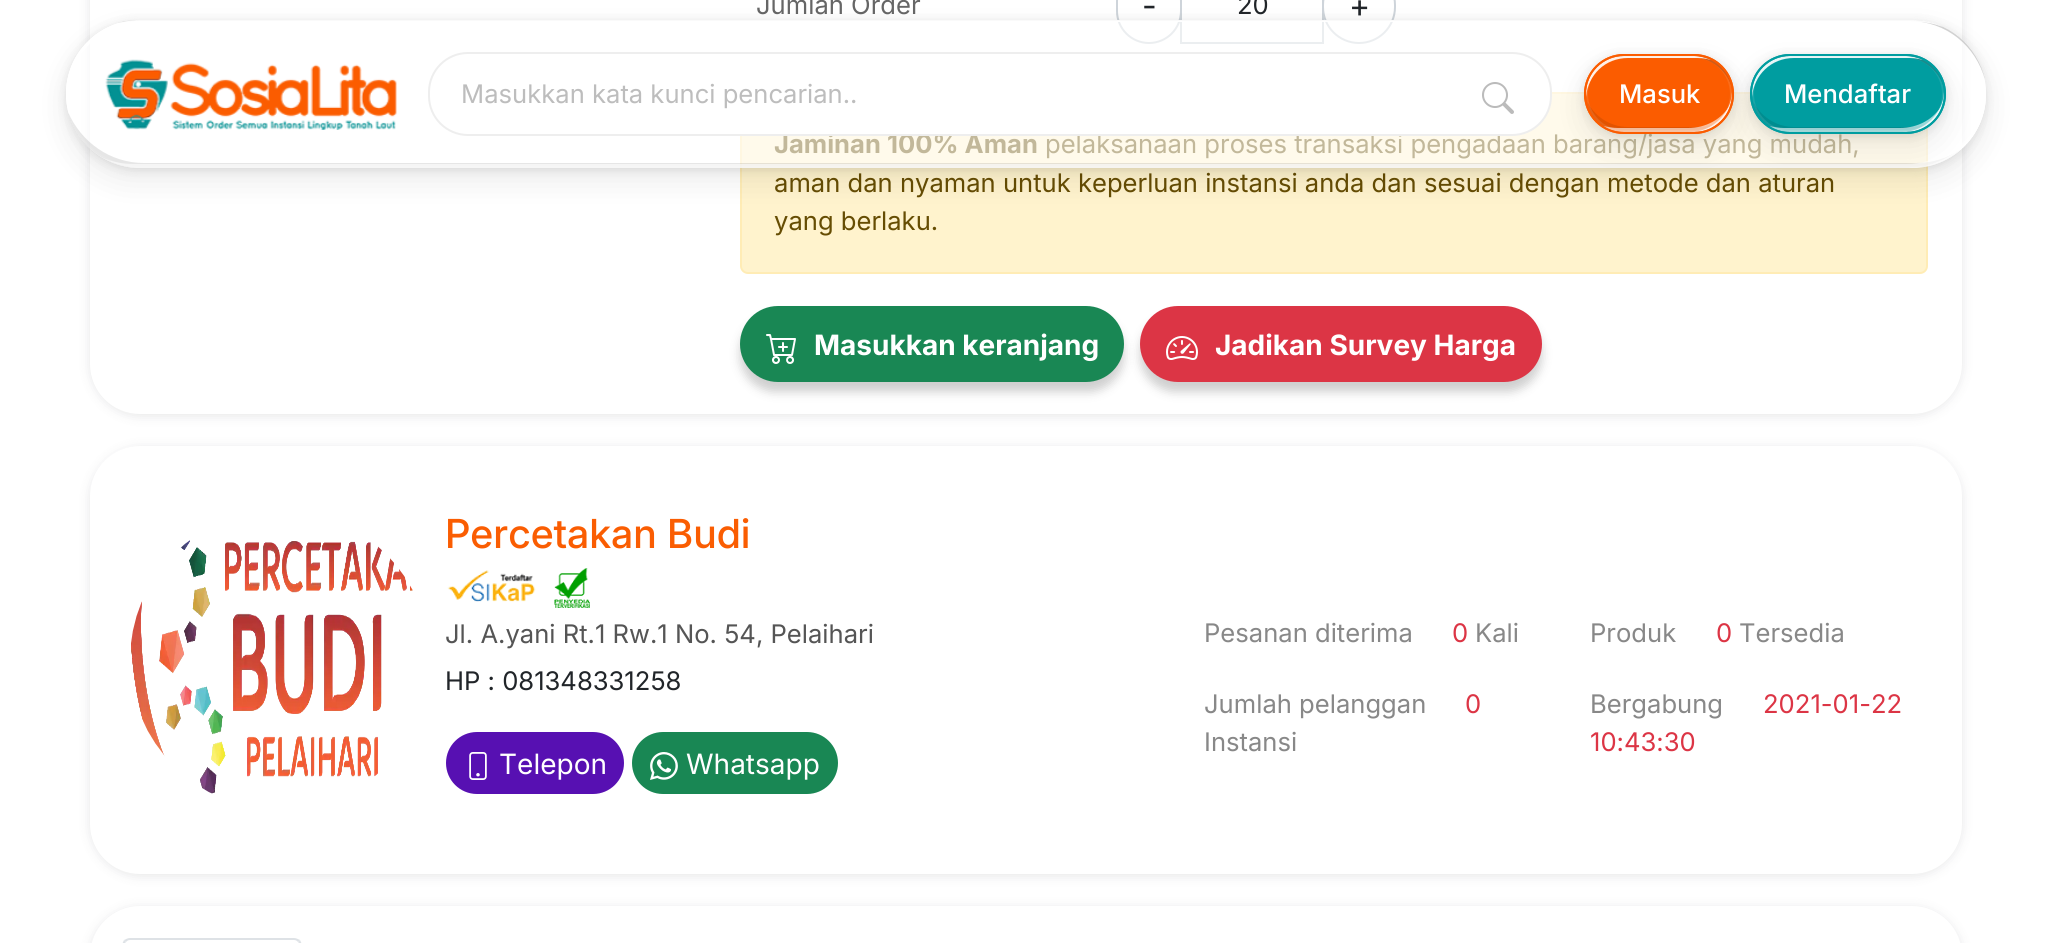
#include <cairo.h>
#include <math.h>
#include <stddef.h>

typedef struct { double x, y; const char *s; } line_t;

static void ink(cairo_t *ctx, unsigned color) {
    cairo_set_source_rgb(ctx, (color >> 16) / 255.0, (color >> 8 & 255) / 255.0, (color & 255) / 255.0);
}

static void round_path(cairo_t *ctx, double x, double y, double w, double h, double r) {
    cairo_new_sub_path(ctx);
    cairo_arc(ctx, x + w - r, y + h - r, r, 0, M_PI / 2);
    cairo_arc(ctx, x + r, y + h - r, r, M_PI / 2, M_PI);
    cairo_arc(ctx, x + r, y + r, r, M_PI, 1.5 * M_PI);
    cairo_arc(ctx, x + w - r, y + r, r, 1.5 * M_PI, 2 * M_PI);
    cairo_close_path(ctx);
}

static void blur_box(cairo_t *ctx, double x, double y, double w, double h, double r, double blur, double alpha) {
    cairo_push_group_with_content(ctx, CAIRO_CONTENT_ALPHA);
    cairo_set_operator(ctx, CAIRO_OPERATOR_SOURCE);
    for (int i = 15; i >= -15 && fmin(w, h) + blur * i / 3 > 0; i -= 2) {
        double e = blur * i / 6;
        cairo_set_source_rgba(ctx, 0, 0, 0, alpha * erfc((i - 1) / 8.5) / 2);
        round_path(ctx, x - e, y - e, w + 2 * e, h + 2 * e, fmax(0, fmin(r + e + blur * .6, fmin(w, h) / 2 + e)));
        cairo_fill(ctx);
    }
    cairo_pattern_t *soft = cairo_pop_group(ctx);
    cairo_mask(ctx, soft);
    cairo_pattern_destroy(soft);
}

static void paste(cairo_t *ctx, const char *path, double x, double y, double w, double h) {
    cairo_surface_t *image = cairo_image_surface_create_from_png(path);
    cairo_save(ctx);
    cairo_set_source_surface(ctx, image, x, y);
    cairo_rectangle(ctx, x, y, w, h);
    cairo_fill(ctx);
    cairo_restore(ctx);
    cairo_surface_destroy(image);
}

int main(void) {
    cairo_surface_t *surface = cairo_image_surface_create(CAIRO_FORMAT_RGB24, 2050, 943);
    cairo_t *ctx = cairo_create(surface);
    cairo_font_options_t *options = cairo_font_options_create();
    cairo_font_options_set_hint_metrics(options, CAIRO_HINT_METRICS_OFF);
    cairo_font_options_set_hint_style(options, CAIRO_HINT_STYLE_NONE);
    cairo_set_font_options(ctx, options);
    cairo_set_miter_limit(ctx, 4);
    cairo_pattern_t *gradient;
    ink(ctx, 0xFFFFFF);
    cairo_paint(ctx);
    ink(ctx, 0x31353B);
    blur_box(ctx, 90, -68, 1872, 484, 50, 6, 0.12);
    ink(ctx, 0xFFFFFF);
    round_path(ctx, 90, -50, 1872, 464, 50);
    cairo_fill(ctx);
    cairo_select_font_face(ctx, "Inter", CAIRO_FONT_SLANT_NORMAL, CAIRO_FONT_WEIGHT_NORMAL);
    cairo_set_font_size(ctx, 25.6);
    ink(ctx, 0x666666);
    cairo_move_to(ctx, 756, 14);
    cairo_show_text(ctx, "Jumlah Order");
    cairo_rectangle(ctx, 1181, -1, 142, 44);
    ink(ctx, 0xCED4DA);
    cairo_stroke(ctx);
    round_path(ctx, 1117, -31, 64, 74, 32);
    cairo_stroke(ctx);
    cairo_set_font_size(ctx, 32);
    ink(ctx, 0x212529);
    cairo_move_to(ctx, 1142, 17);
    cairo_show_text(ctx, "-");
    cairo_set_font_size(ctx, 25.6);
    cairo_move_to(ctx, 1237, 14);
    cairo_show_text(ctx, "20");
    round_path(ctx, 1323, -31, 72, 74, 36);
    ink(ctx, 0xCED4DA);
    cairo_stroke(ctx);
    cairo_set_font_size(ctx, 32);
    ink(ctx, 0x212529);
    cairo_move_to(ctx, 1349, 17);
    cairo_show_text(ctx, "+");
    ink(ctx, 0xFFF3CD);
    round_path(ctx, 741, 93, 1186, 180, 7);
    cairo_fill_preserve(ctx);
    ink(ctx, 0xFFECB5);
    cairo_stroke(ctx);
    cairo_select_font_face(ctx, "Inter", CAIRO_FONT_SLANT_NORMAL, CAIRO_FONT_WEIGHT_BOLD);
    cairo_set_font_size(ctx, 25.6);
    ink(ctx, 0x664D03);
    cairo_move_to(ctx, 774, 153);
    cairo_show_text(ctx, "Jaminan 100% Aman");
    cairo_select_font_face(ctx, "Inter", CAIRO_FONT_SLANT_NORMAL, CAIRO_FONT_WEIGHT_NORMAL);
    {
        static const line_t items[] = {
            {1045, 153, "pelaksanaan proses transaksi pengadaan barang/jasa yang mudah,"},
            {774, 192, "aman dan nyaman untuk keperluan instansi anda dan sesuai dengan metode dan aturan"},
            {774, 230, "yang berlaku."},
        };
        for (size_t i = 0; i < sizeof items / sizeof *items; i++) {
            cairo_move_to(ctx, items[i].x, items[i].y);
            cairo_show_text(ctx, items[i].s);
        }
    }
    ink(ctx, 0x000000);
    blur_box(ctx, 740, 316, 384, 76, 38, 5, 0.19);
    ink(ctx, 0x198754);
    round_path(ctx, 741, 307, 382, 74, 37);
    cairo_fill_preserve(ctx);
    cairo_stroke(ctx);
    paste(ctx, "media/1.png", 766, 334, 30, 30);
    cairo_select_font_face(ctx, "Inter", CAIRO_FONT_SLANT_NORMAL, CAIRO_FONT_WEIGHT_BOLD);
    cairo_set_font_size(ctx, 28);
    ink(ctx, 0xFFFFFF);
    cairo_move_to(ctx, 814, 355);
    cairo_show_text(ctx, "Masukkan keranjang");
    ink(ctx, 0x000000);
    blur_box(ctx, 1140, 316, 402, 76, 38, 5, 0.19);
    ink(ctx, 0xDC3545);
    round_path(ctx, 1141, 307, 400, 74, 37);
    cairo_fill_preserve(ctx);
    cairo_stroke(ctx);
    paste(ctx, "media/2.png", 1166, 336, 32, 24);
    ink(ctx, 0xFFFFFF);
    cairo_move_to(ctx, 1215, 355);
    cairo_show_text(ctx, "Jadikan Survey Harga");
    ink(ctx, 0x31353B);
    blur_box(ctx, 90, 448, 1872, 428, 50, 6, 0.12);
    ink(ctx, 0xFFFFFF);
    round_path(ctx, 90, 446, 1872, 428, 50);
    cairo_fill(ctx);
    cairo_select_font_face(ctx, "Inter Medium", CAIRO_FONT_SLANT_NORMAL, CAIRO_FONT_WEIGHT_NORMAL);
    cairo_set_font_size(ctx, 40);
    ink(ctx, 0xFA5D02);
    cairo_move_to(ctx, 445, 548);
    cairo_show_text(ctx, "Percetakan Budi");
    paste(ctx, "media/3.png", 131, 540, 282, 254);
    paste(ctx, "media/4.png", 447, 570, 89, 32);
    paste(ctx, "media/5.png", 554, 568, 36, 40);
    cairo_select_font_face(ctx, "Inter", CAIRO_FONT_SLANT_NORMAL, CAIRO_FONT_WEIGHT_NORMAL);
    cairo_set_font_size(ctx, 25.6);
    ink(ctx, 0x555555);
    cairo_move_to(ctx, 445, 643);
    cairo_show_text(ctx, "Jl. A.yani Rt.1 Rw.1 No. 54, Pelaihari");
    ink(ctx, 0x212529);
    cairo_move_to(ctx, 445, 690);
    cairo_show_text(ctx, "HP : 081348331258");
    ink(ctx, 0x5710B2);
    round_path(ctx, 447, 733, 176, 60, 30);
    cairo_fill_preserve(ctx);
    cairo_stroke(ctx);
    paste(ctx, "media/6.png", 469, 752, 18, 28);
    cairo_set_font_size(ctx, 28);
    ink(ctx, 0xFFFFFF);
    cairo_move_to(ctx, 499, 774);
    cairo_show_text(ctx, "Telepon");
    ink(ctx, 0x198754);
    round_path(ctx, 633, 733, 204, 60, 30);
    cairo_fill_preserve(ctx);
    cairo_stroke(ctx);
    paste(ctx, "media/7.png", 650, 752, 28, 28);
    ink(ctx, 0xFFFFFF);
    cairo_move_to(ctx, 686, 774);
    cairo_show_text(ctx, "Whatsapp");
    cairo_set_font_size(ctx, 25.6);
    ink(ctx, 0x888888);
    cairo_move_to(ctx, 1204, 642);
    cairo_show_text(ctx, "Pesanan diterima");
    ink(ctx, 0xDC3545);
    cairo_move_to(ctx, 1452, 642);
    cairo_show_text(ctx, "0");
    ink(ctx, 0x888888);
    cairo_move_to(ctx, 1475, 642);
    cairo_show_text(ctx, "Kali");
    cairo_move_to(ctx, 1204, 713);
    cairo_show_text(ctx, "Jumlah pelanggan");
    ink(ctx, 0xDC3545);
    cairo_move_to(ctx, 1465, 713);
    cairo_show_text(ctx, "0");
    ink(ctx, 0x888888);
    cairo_move_to(ctx, 1204, 751);
    cairo_show_text(ctx, "Instansi");
    cairo_move_to(ctx, 1590, 642);
    cairo_show_text(ctx, "Produk");
    ink(ctx, 0xDC3545);
    cairo_move_to(ctx, 1716, 642);
    cairo_show_text(ctx, "0");
    ink(ctx, 0x888888);
    cairo_move_to(ctx, 1739, 642);
    cairo_show_text(ctx, "Tersedia");
    cairo_move_to(ctx, 1590, 713);
    cairo_show_text(ctx, "Bergabung");
    ink(ctx, 0xDC3545);
    cairo_move_to(ctx, 1763, 713);
    cairo_show_text(ctx, "2021-01-22");
    cairo_move_to(ctx, 1590, 751);
    cairo_show_text(ctx, "10:43:30");
    ink(ctx, 0x31353B);
    blur_box(ctx, 90, 908, 1872, 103, 50, 6, 0.12);
    ink(ctx, 0xFFFFFF);
    round_path(ctx, 90, 906, 1872, 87, 50);
    cairo_fill(ctx);
    ink(ctx, 0xDEE2E6);
    cairo_new_path(ctx);
    cairo_move_to(ctx, 130, 938);
    cairo_curve_to(ctx, 128, 938, 126, 939, 124, 940);
    cairo_line_to(ctx, 126, 942);
    cairo_curve_to(ctx, 127, 941, 128, 940, 130, 940);
    cairo_line_to(ctx, 294, 940);
    cairo_curve_to(ctx, 296, 940, 297, 941, 298, 942);
    cairo_line_to(ctx, 300, 940);
    cairo_curve_to(ctx, 298, 939, 296, 938, 294, 938);
    cairo_close_path(ctx);
    cairo_fill(ctx);
    cairo_new_path(ctx);
    cairo_move_to(ctx, 302, 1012);
    cairo_line_to(ctx, 302, 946);
    cairo_curve_to(ctx, 302, 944, 301, 942, 300, 940);
    cairo_line_to(ctx, 298, 942);
    cairo_curve_to(ctx, 299, 943, 300, 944, 300, 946);
    cairo_line_to(ctx, 300, 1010);
    cairo_close_path(ctx);
    cairo_fill(ctx);
    cairo_new_path(ctx);
    cairo_move_to(ctx, 122, 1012);
    cairo_line_to(ctx, 124, 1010);
    cairo_line_to(ctx, 124, 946);
    cairo_curve_to(ctx, 124, 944, 125, 943, 126, 942);
    cairo_line_to(ctx, 124, 940);
    cairo_curve_to(ctx, 123, 942, 122, 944, 122, 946);
    cairo_close_path(ctx);
    cairo_fill(ctx);
    gradient = cairo_pattern_create_linear(0, 21, 2050, 21);
    cairo_pattern_add_color_stop_rgba(gradient, 0, 1, 1, 1, 0);
    cairo_pattern_add_color_stop_rgba(gradient, 0.5, 1, 1, 1, 0.8);
    cairo_pattern_add_color_stop_rgba(gradient, 1, 1, 1, 1, 0);
    cairo_set_source(ctx, gradient);
    cairo_pattern_destroy(gradient);
    cairo_rectangle(ctx, 1117, 20, 277, 2);
    cairo_fill(ctx);
    cairo_save(ctx);
    cairo_set_fill_rule(ctx, CAIRO_FILL_RULE_EVEN_ODD);
    cairo_new_path(ctx);
    cairo_move_to(ctx, 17, 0);
    cairo_line_to(ctx, 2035, 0);
    cairo_line_to(ctx, 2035, 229);
    cairo_line_to(ctx, 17, 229);
    cairo_close_path(ctx);
    cairo_move_to(ctx, 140, 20);
    cairo_line_to(ctx, 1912, 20);
    cairo_curve_to(ctx, 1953, 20, 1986, 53, 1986, 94);
    cairo_curve_to(ctx, 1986, 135, 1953, 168, 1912, 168);
    cairo_line_to(ctx, 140, 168);
    cairo_curve_to(ctx, 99, 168, 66, 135, 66, 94);
    cairo_curve_to(ctx, 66, 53, 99, 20, 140, 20);
    cairo_close_path(ctx);
    cairo_clip(ctx);
    ink(ctx, 0x000000);
    blur_box(ctx, 66, 32, 1920, 148, 74, 16, 0.08);
    cairo_restore(ctx);
    cairo_save(ctx);
    cairo_set_fill_rule(ctx, CAIRO_FILL_RULE_EVEN_ODD);
    cairo_new_path(ctx);
    cairo_move_to(ctx, 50, 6);
    cairo_line_to(ctx, 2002, 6);
    cairo_line_to(ctx, 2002, 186);
    cairo_line_to(ctx, 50, 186);
    cairo_close_path(ctx);
    cairo_move_to(ctx, 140, 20);
    cairo_line_to(ctx, 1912, 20);
    cairo_curve_to(ctx, 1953, 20, 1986, 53, 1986, 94);
    cairo_curve_to(ctx, 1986, 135, 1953, 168, 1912, 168);
    cairo_line_to(ctx, 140, 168);
    cairo_curve_to(ctx, 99, 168, 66, 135, 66, 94);
    cairo_curve_to(ctx, 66, 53, 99, 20, 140, 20);
    cairo_close_path(ctx);
    cairo_clip(ctx);
    ink(ctx, 0x000000);
    blur_box(ctx, 66, 22, 1920, 148, 74, 5, 0.1);
    cairo_restore(ctx);
    cairo_set_source_rgba(ctx, 1, 1, 1, 0.6);
    round_path(ctx, 66, 20, 1920, 148, 74);
    cairo_fill(ctx);
    cairo_set_source_rgba(ctx, 0, 0, 0, 0.1);
    cairo_new_path(ctx);
    cairo_move_to(ctx, 68, 112);
    cairo_curve_to(ctx, 76, 144, 105, 168, 140, 168);
    cairo_line_to(ctx, 1912, 168);
    cairo_curve_to(ctx, 1931, 168, 1948, 161, 1961, 149);
    cairo_curve_to(ctx, 1948, 158, 1933, 163, 1916, 163);
    cairo_line_to(ctx, 144, 163);
    cairo_curve_to(ctx, 110, 163, 81, 142, 68, 112);
    cairo_close_path(ctx);
    cairo_fill(ctx);
    cairo_set_source_rgba(ctx, 0, 0, 0, 0.2);
    cairo_new_path(ctx);
    cairo_move_to(ctx, 137, 21);
    cairo_line_to(ctx, 1909, 21);
    cairo_curve_to(ctx, 1946, 21, 1976, 46, 1985, 80);
    cairo_curve_to(ctx, 1978, 46, 1948, 20, 1912, 20);
    cairo_line_to(ctx, 140, 20);
    cairo_curve_to(ctx, 132, 20, 125, 21, 118, 23);
    cairo_curve_to(ctx, 124, 22, 130, 21, 137, 21);
    cairo_close_path(ctx);
    cairo_fill(ctx);
    cairo_set_source_rgba(ctx, 1, 1, 1, 0.6);
    cairo_new_path(ctx);
    cairo_move_to(ctx, 103, 158);
    cairo_curve_to(ctx, 114, 164, 127, 168, 140, 168);
    cairo_line_to(ctx, 1912, 168);
    cairo_curve_to(ctx, 1945, 168, 1972, 147, 1982, 118);
    cairo_curve_to(ctx, 1968, 145, 1939, 164, 1906, 164);
    cairo_line_to(ctx, 134, 164);
    cairo_curve_to(ctx, 123, 164, 113, 162, 103, 158);
    cairo_close_path(ctx);
    cairo_fill(ctx);
    cairo_set_source_rgba(ctx, 1, 1, 1, 0.8);
    cairo_new_path(ctx);
    cairo_move_to(ctx, 1908, 168);
    cairo_line_to(ctx, 1927, 166);
    cairo_curve_to(ctx, 1962, 159, 1987, 127, 1986, 92);
    cairo_curve_to(ctx, 1985, 134, 1950, 168, 1908, 168);
    cairo_close_path(ctx);
    cairo_fill(ctx);
    cairo_set_source_rgba(ctx, 1, 1, 1, 0.9);
    cairo_new_path(ctx);
    cairo_move_to(ctx, 144, 22);
    cairo_line_to(ctx, 1916, 22);
    cairo_curve_to(ctx, 1926, 22, 1935, 24, 1943, 27);
    cairo_curve_to(ctx, 1934, 22, 1923, 20, 1912, 20);
    cairo_line_to(ctx, 140, 20);
    cairo_curve_to(ctx, 99, 20, 66, 53, 66, 94);
    cairo_line_to(ctx, 66, 97);
    cairo_curve_to(ctx, 68, 55, 102, 22, 144, 22);
    cairo_close_path(ctx);
    cairo_fill(ctx);
    round_path(ctx, 67, 21, 1918, 146, 73);
    cairo_set_source_rgba(ctx, 1, 1, 1, 0.1);
    cairo_stroke(ctx);
    paste(ctx, "media/8.png", 105, 59, 292, 71);
    ink(ctx, 0xFFFFFF);
    round_path(ctx, 429, 53, 1122, 82, 39);
    cairo_fill_preserve(ctx);
    ink(ctx, 0xEEEEEE);
    cairo_stroke(ctx);
    ink(ctx, 0xBDBDBD);
    cairo_move_to(ctx, 461, 103);
    cairo_show_text(ctx, "Masukkan kata kunci pencarian..");
    paste(ctx, "media/9.png", 1482, 82, 32, 32);
    ink(ctx, 0x000000);
    blur_box(ctx, 1584, 66, 150, 80, 40, 16, 0.08);
    blur_box(ctx, 1584, 56, 150, 80, 40, 5, 0.1);
    ink(ctx, 0xFB5C00);
    round_path(ctx, 1584, 54, 150, 80, 40);
    cairo_fill(ctx);
    ink(ctx, 0xE25300);
    cairo_new_path(ctx);
    cairo_move_to(ctx, 1587, 101);
    cairo_curve_to(ctx, 1590, 119, 1605, 132, 1624, 132);
    cairo_line_to(ctx, 1694, 132);
    cairo_curve_to(ctx, 1705, 132, 1714, 128, 1721, 121);
    cairo_curve_to(ctx, 1714, 125, 1706, 127, 1698, 127);
    cairo_line_to(ctx, 1628, 127);
    cairo_curve_to(ctx, 1610, 127, 1594, 116, 1587, 101);
    cairo_close_path(ctx);
    cairo_fill(ctx);
    ink(ctx, 0xC94A00);
    cairo_new_path(ctx);
    cairo_move_to(ctx, 1621, 57);
    cairo_line_to(ctx, 1691, 57);
    cairo_curve_to(ctx, 1710, 57, 1727, 70, 1732, 88);
    cairo_curve_to(ctx, 1729, 70, 1713, 56, 1694, 56);
    cairo_line_to(ctx, 1624, 56);
    cairo_curve_to(ctx, 1620, 56, 1615, 57, 1612, 58);
    cairo_close_path(ctx);
    cairo_fill(ctx);
    cairo_set_source_rgba(ctx, 1, 1, 1, 0.6);
    cairo_new_path(ctx);
    cairo_move_to(ctx, 1603, 126);
    cairo_curve_to(ctx, 1609, 130, 1616, 132, 1624, 132);
    cairo_line_to(ctx, 1694, 132);
    cairo_curve_to(ctx, 1711, 132, 1726, 120, 1730, 105);
    cairo_curve_to(ctx, 1722, 119, 1706, 128, 1688, 128);
    cairo_line_to(ctx, 1618, 128);
    cairo_curve_to(ctx, 1613, 128, 1608, 127, 1603, 126);
    cairo_close_path(ctx);
    cairo_fill(ctx);
    cairo_set_source_rgba(ctx, 1, 1, 1, 0.8);
    cairo_new_path(ctx);
    cairo_move_to(ctx, 1690, 132);
    cairo_line_to(ctx, 1702, 131);
    cairo_curve_to(ctx, 1720, 128, 1733, 110, 1732, 92);
    cairo_curve_to(ctx, 1731, 114, 1712, 132, 1690, 132);
    cairo_close_path(ctx);
    cairo_fill(ctx);
    cairo_set_source_rgba(ctx, 1, 1, 1, 0.9);
    cairo_new_path(ctx);
    cairo_move_to(ctx, 1628, 58);
    cairo_line_to(ctx, 1698, 58);
    cairo_curve_to(ctx, 1703, 58, 1707, 59, 1712, 60);
    cairo_curve_to(ctx, 1706, 58, 1700, 56, 1694, 56);
    cairo_line_to(ctx, 1624, 56);
    cairo_curve_to(ctx, 1603, 56, 1586, 73, 1586, 94);
    cairo_line_to(ctx, 1586, 97);
    cairo_curve_to(ctx, 1588, 75, 1605, 58, 1628, 58);
    cairo_close_path(ctx);
    cairo_fill(ctx);
    round_path(ctx, 1587, 57, 144, 74, 37);
    cairo_set_source_rgba(ctx, 1, 1, 1, 0.1);
    cairo_stroke(ctx);
    round_path(ctx, 1585, 55, 148, 78, 39);
    ink(ctx, 0xFB5C00);
    cairo_stroke(ctx);
    cairo_select_font_face(ctx, "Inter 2 Medium", CAIRO_FONT_SLANT_NORMAL, CAIRO_FONT_WEIGHT_NORMAL);
    ink(ctx, 0xFFFFFF);
    cairo_move_to(ctx, 1619, 103);
    cairo_show_text(ctx, "Masuk");
    ink(ctx, 0x000000);
    blur_box(ctx, 1750, 66, 196, 80, 40, 16, 0.08);
    blur_box(ctx, 1750, 56, 196, 80, 40, 5, 0.1);
    ink(ctx, 0x009DA0);
    round_path(ctx, 1750, 54, 196, 80, 40);
    cairo_fill(ctx);
    ink(ctx, 0x008D90);
    cairo_new_path(ctx);
    cairo_move_to(ctx, 1753, 101);
    cairo_curve_to(ctx, 1756, 119, 1771, 132, 1790, 132);
    cairo_line_to(ctx, 1906, 132);
    cairo_curve_to(ctx, 1917, 132, 1926, 128, 1933, 121);
    cairo_curve_to(ctx, 1926, 125, 1918, 127, 1910, 127);
    cairo_line_to(ctx, 1794, 127);
    cairo_curve_to(ctx, 1776, 127, 1760, 116, 1753, 101);
    cairo_close_path(ctx);
    cairo_fill(ctx);
    ink(ctx, 0x007E80);
    cairo_new_path(ctx);
    cairo_move_to(ctx, 1787, 57);
    cairo_line_to(ctx, 1903, 57);
    cairo_curve_to(ctx, 1922, 57, 1939, 70, 1944, 88);
    cairo_curve_to(ctx, 1941, 70, 1925, 56, 1906, 56);
    cairo_line_to(ctx, 1790, 56);
    cairo_curve_to(ctx, 1786, 56, 1781, 57, 1778, 58);
    cairo_close_path(ctx);
    cairo_fill(ctx);
    cairo_set_source_rgba(ctx, 1, 1, 1, 0.6);
    cairo_new_path(ctx);
    cairo_move_to(ctx, 1769, 126);
    cairo_curve_to(ctx, 1775, 130, 1782, 132, 1790, 132);
    cairo_line_to(ctx, 1906, 132);
    cairo_curve_to(ctx, 1923, 132, 1938, 120, 1942, 105);
    cairo_curve_to(ctx, 1934, 119, 1918, 128, 1900, 128);
    cairo_line_to(ctx, 1784, 128);
    cairo_curve_to(ctx, 1779, 128, 1774, 127, 1769, 126);
    cairo_close_path(ctx);
    cairo_fill(ctx);
    cairo_set_source_rgba(ctx, 1, 1, 1, 0.8);
    cairo_new_path(ctx);
    cairo_move_to(ctx, 1902, 132);
    cairo_line_to(ctx, 1914, 131);
    cairo_curve_to(ctx, 1932, 128, 1945, 110, 1944, 92);
    cairo_curve_to(ctx, 1943, 114, 1924, 132, 1902, 132);
    cairo_close_path(ctx);
    cairo_fill(ctx);
    cairo_set_source_rgba(ctx, 1, 1, 1, 0.9);
    cairo_new_path(ctx);
    cairo_move_to(ctx, 1794, 58);
    cairo_line_to(ctx, 1910, 58);
    cairo_curve_to(ctx, 1915, 58, 1919, 59, 1924, 60);
    cairo_curve_to(ctx, 1918, 58, 1912, 56, 1906, 56);
    cairo_line_to(ctx, 1790, 56);
    cairo_curve_to(ctx, 1769, 56, 1752, 73, 1752, 94);
    cairo_line_to(ctx, 1752, 97);
    cairo_curve_to(ctx, 1754, 75, 1771, 58, 1794, 58);
    cairo_close_path(ctx);
    cairo_fill(ctx);
    round_path(ctx, 1753, 57, 190, 74, 37);
    cairo_set_source_rgba(ctx, 1, 1, 1, 0.1);
    cairo_stroke(ctx);
    round_path(ctx, 1751, 55, 194, 78, 39);
    ink(ctx, 0x009DA0);
    cairo_stroke(ctx);
    ink(ctx, 0xFFFFFF);
    cairo_move_to(ctx, 1784, 103);
    cairo_show_text(ctx, "Mendaftar");
    cairo_surface_write_to_png(surface, "image.png");
    cairo_font_options_destroy(options);
    cairo_destroy(ctx);
    cairo_surface_destroy(surface);
    return 0;
}
